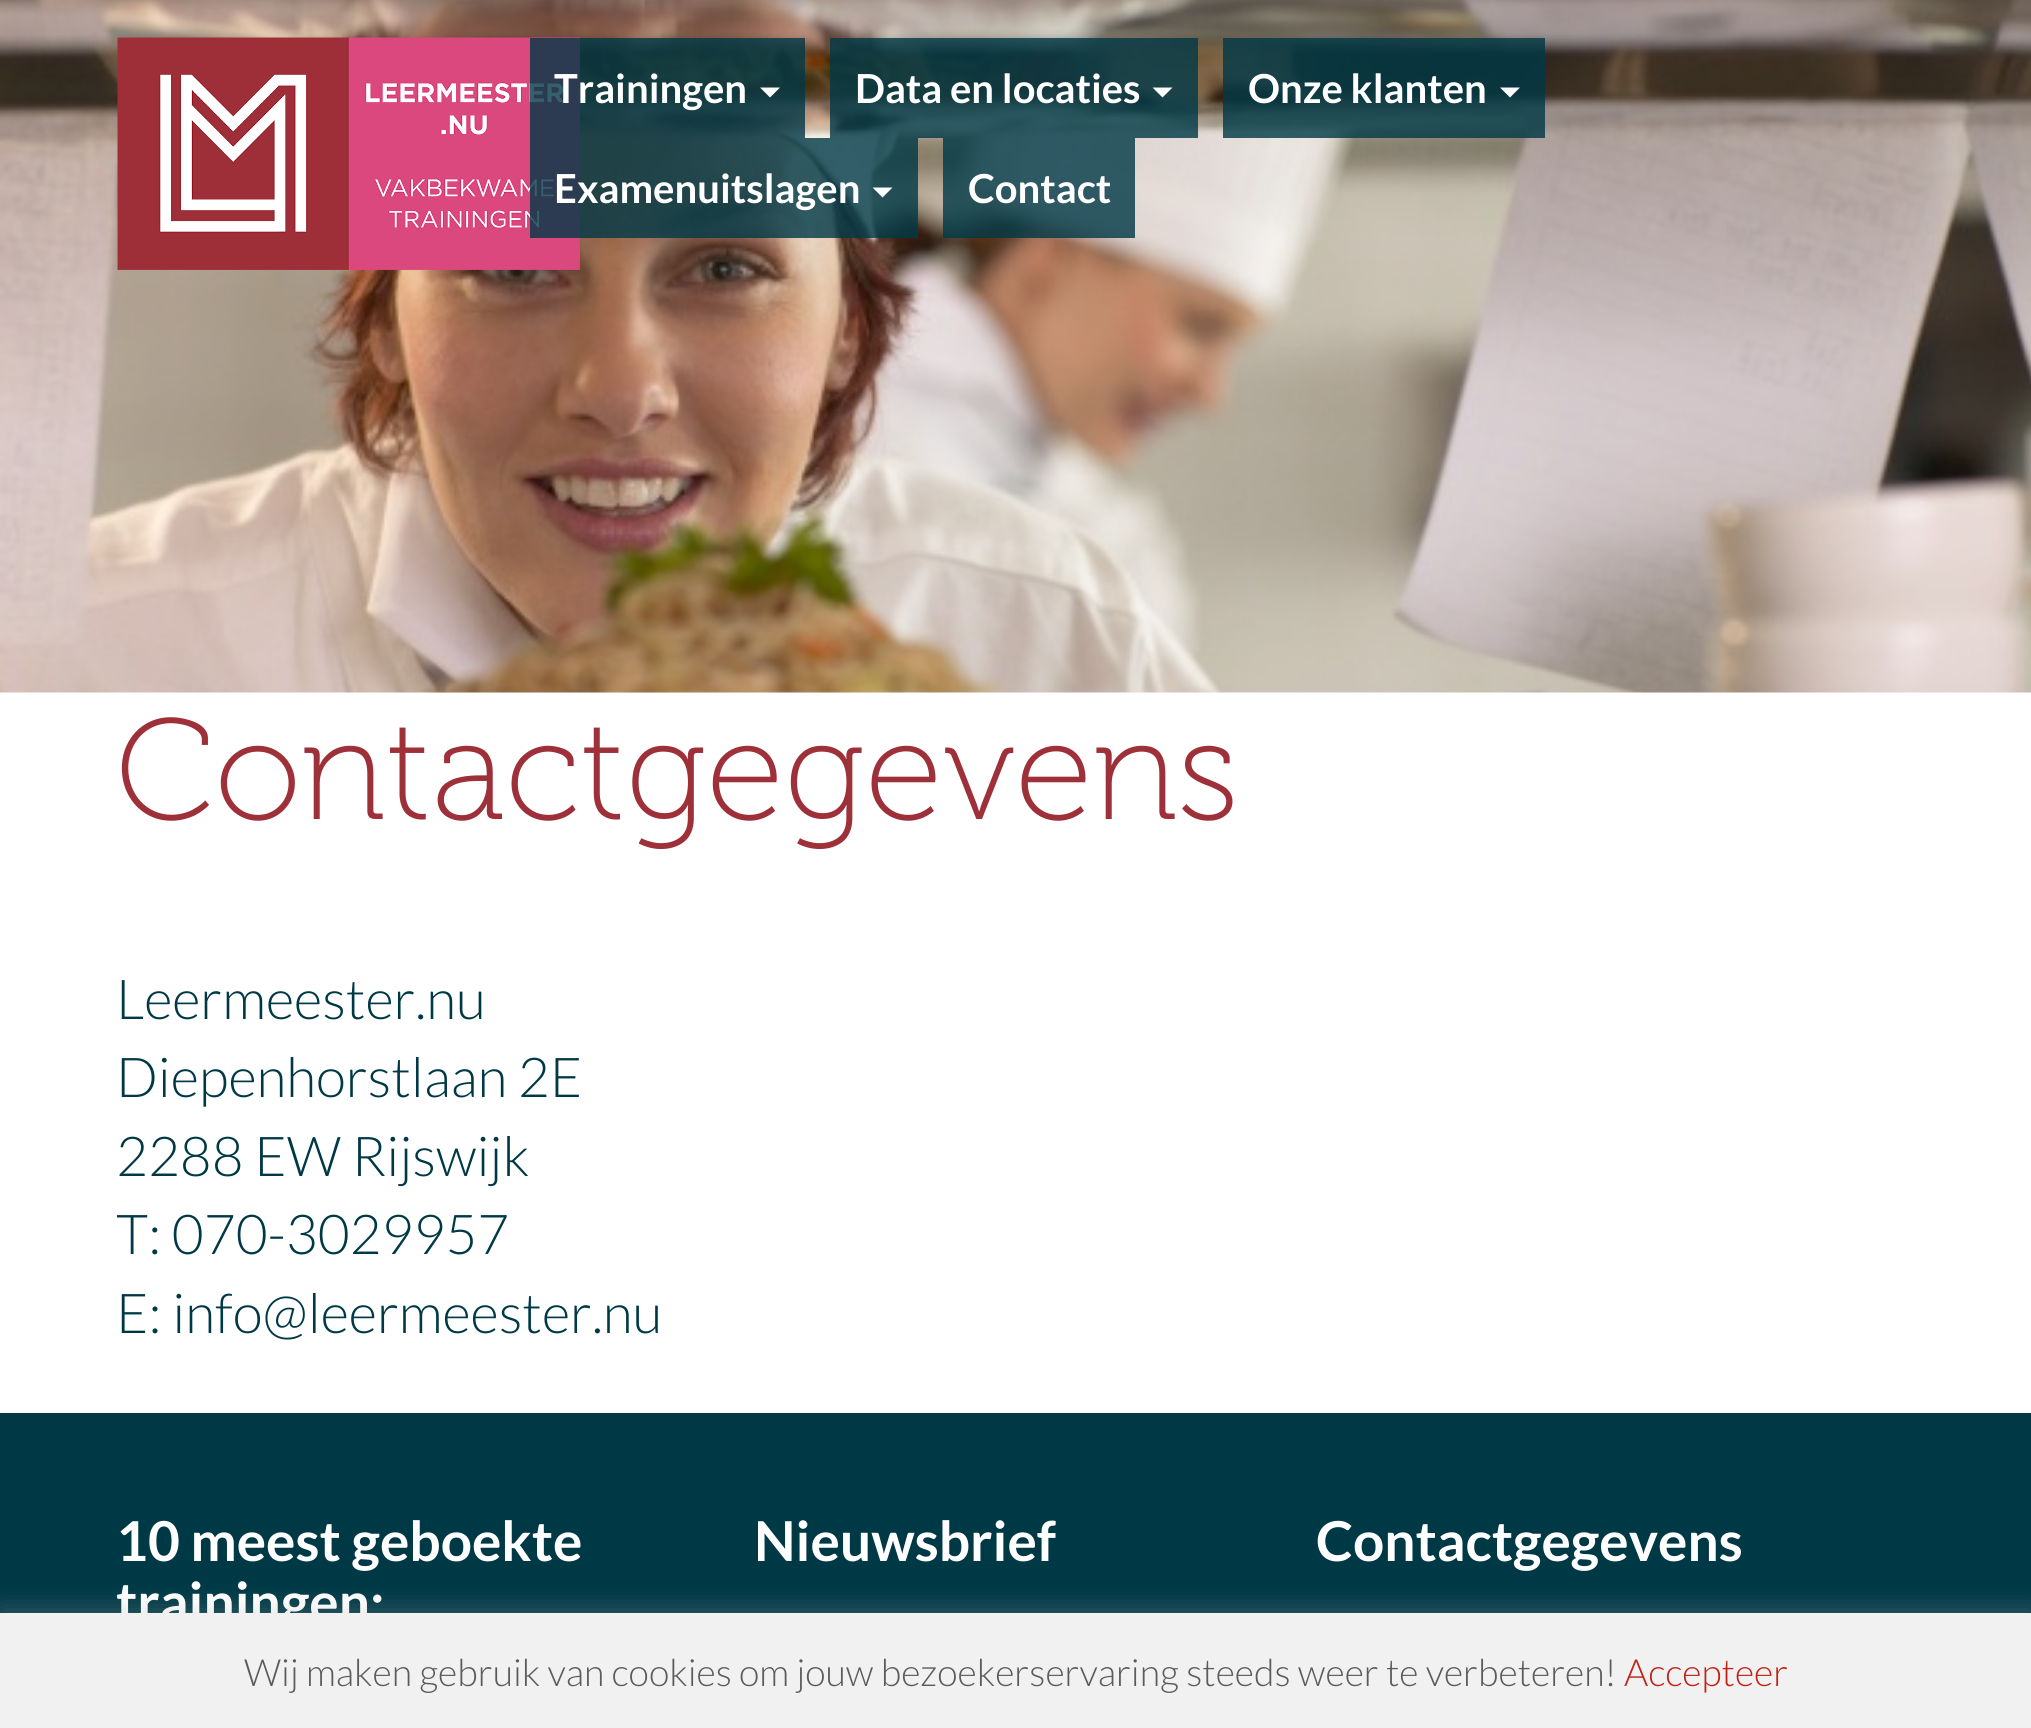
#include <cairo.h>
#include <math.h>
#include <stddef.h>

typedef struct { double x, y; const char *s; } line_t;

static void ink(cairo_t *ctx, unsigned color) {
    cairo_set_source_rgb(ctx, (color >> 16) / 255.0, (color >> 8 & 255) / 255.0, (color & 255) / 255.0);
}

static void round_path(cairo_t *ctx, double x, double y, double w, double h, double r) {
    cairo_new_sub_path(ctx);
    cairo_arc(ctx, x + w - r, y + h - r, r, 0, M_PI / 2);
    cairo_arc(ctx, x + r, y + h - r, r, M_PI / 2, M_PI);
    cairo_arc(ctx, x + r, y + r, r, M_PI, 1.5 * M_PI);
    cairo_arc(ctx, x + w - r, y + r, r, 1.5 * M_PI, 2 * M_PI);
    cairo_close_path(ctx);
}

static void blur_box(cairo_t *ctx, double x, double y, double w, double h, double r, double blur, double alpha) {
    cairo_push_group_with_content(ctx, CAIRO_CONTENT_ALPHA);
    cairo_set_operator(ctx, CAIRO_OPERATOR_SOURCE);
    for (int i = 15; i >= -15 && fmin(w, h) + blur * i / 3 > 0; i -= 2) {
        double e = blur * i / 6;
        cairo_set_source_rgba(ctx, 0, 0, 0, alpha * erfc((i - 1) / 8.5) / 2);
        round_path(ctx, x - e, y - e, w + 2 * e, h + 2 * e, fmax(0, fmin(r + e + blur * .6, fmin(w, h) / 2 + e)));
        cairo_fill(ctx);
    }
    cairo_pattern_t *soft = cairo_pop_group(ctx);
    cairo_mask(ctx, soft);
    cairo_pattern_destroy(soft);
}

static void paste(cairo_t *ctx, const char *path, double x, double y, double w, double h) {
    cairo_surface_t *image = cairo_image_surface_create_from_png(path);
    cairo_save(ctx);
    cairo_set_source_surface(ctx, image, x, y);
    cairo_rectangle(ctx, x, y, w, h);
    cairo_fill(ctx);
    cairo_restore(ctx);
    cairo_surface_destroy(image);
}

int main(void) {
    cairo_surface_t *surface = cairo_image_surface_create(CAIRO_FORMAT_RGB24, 2031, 1728);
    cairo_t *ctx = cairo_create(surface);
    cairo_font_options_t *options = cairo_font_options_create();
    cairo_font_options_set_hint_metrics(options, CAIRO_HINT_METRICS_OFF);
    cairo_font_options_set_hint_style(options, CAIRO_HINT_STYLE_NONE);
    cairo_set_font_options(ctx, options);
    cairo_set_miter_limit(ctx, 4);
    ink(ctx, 0xFFFFFF);
    cairo_paint(ctx);
    paste(ctx, "media/1.png", 0, 0, 2031, 693);
    paste(ctx, "media/2.png", 117, 37, 463, 233);
    cairo_set_source_rgba(ctx, 0, 0.224, 0.275, 0.8);
    cairo_rectangle(ctx, 530, 38, 275, 100);
    cairo_fill(ctx);
    cairo_select_font_face(ctx, "Lato", CAIRO_FONT_SLANT_NORMAL, CAIRO_FONT_WEIGHT_BOLD);
    cairo_set_font_size(ctx, 40);
    ink(ctx, 0xFFFFFF);
    cairo_move_to(ctx, 554, 103);
    cairo_show_text(ctx, "Trainingen");
    cairo_new_path(ctx);
    cairo_move_to(ctx, 760, 87.5);
    cairo_line_to(ctx, 780, 87.5);
    cairo_line_to(ctx, 770, 97.5);
    cairo_close_path(ctx);
    cairo_fill(ctx);
    cairo_set_source_rgba(ctx, 0, 0.224, 0.275, 0.8);
    cairo_rectangle(ctx, 830, 38, 368, 100);
    cairo_fill(ctx);
    ink(ctx, 0xFFFFFF);
    cairo_move_to(ctx, 855, 103);
    cairo_show_text(ctx, "Data en locaties");
    cairo_new_path(ctx);
    cairo_move_to(ctx, 1152.5, 87.5);
    cairo_line_to(ctx, 1172.5, 87.5);
    cairo_line_to(ctx, 1162.5, 97.5);
    cairo_close_path(ctx);
    cairo_fill(ctx);
    cairo_set_source_rgba(ctx, 0, 0.224, 0.275, 0.8);
    cairo_rectangle(ctx, 1223, 38, 322, 100);
    cairo_fill(ctx);
    ink(ctx, 0xFFFFFF);
    cairo_move_to(ctx, 1248, 103);
    cairo_show_text(ctx, "Onze klanten");
    cairo_new_path(ctx);
    cairo_move_to(ctx, 1500, 87.5);
    cairo_line_to(ctx, 1520, 87.5);
    cairo_line_to(ctx, 1510, 97.5);
    cairo_close_path(ctx);
    cairo_fill(ctx);
    cairo_set_source_rgba(ctx, 0, 0.224, 0.275, 0.8);
    cairo_rectangle(ctx, 530, 138, 388, 100);
    cairo_fill(ctx);
    ink(ctx, 0xFFFFFF);
    cairo_move_to(ctx, 554, 203);
    cairo_show_text(ctx, "Examenuitslagen");
    cairo_new_path(ctx);
    cairo_move_to(ctx, 872.5, 187.5);
    cairo_line_to(ctx, 892.5, 187.5);
    cairo_line_to(ctx, 882.5, 197.5);
    cairo_close_path(ctx);
    cairo_fill(ctx);
    cairo_set_source_rgba(ctx, 0, 0.224, 0.275, 0.8);
    cairo_rectangle(ctx, 943, 138, 192, 100);
    cairo_fill(ctx);
    ink(ctx, 0xFFFFFF);
    cairo_move_to(ctx, 968, 203);
    cairo_show_text(ctx, "Contact");
    cairo_select_font_face(ctx, "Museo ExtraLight", CAIRO_FONT_SLANT_NORMAL, CAIRO_FONT_WEIGHT_NORMAL);
    cairo_set_font_size(ctx, 143);
    ink(ctx, 0x9E3039);
    cairo_move_to(ctx, 116, 819);
    cairo_show_text(ctx, "Contactgegevens");
    cairo_select_font_face(ctx, "Lato Light", CAIRO_FONT_SLANT_NORMAL, CAIRO_FONT_WEIGHT_NORMAL);
    cairo_set_font_size(ctx, 55);
    ink(ctx, 0x003946);
    {
        static const line_t items[] = {
            {116, 1019, "Leermeester.nu"},
            {116, 1097, "Diepenhorstlaan 2E"},
            {116, 1176, "2288 EW Rijswijk"},
            {116, 1254, "T: 070-3029957"},
            {116, 1333, "E: info@leermeester.nu"},
        };
        for (size_t i = 0; i < sizeof items / sizeof *items; i++) {
            cairo_move_to(ctx, items[i].x, items[i].y);
            cairo_show_text(ctx, items[i].s);
        }
    }
    cairo_rectangle(ctx, 0, 1413, 2031, 200);
    cairo_fill(ctx);
    cairo_select_font_face(ctx, "Lato", CAIRO_FONT_SLANT_NORMAL, CAIRO_FONT_WEIGHT_BOLD);
    ink(ctx, 0xFFFFFF);
    {
        static const line_t items[] = {
            {116, 1561, "10 meest geboekte"},
            {116, 1622, "trainingen:"},
            {754, 1561, "Nieuwsbrief"},
            {1316, 1561, "Contactgegevens"},
        };
        for (size_t i = 0; i < sizeof items / sizeof *items; i++) {
            cairo_move_to(ctx, items[i].x, items[i].y);
            cairo_show_text(ctx, items[i].s);
        }
    }
    ink(ctx, 0xACABAB);
    blur_box(ctx, 0, 1610, 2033, 118, 0, 12.5, 0.3);
    ink(ctx, 0xF1F1F1);
    cairo_rectangle(ctx, 0, 1613, 2031, 115);
    cairo_fill(ctx);
    cairo_select_font_face(ctx, "Lato Light", CAIRO_FONT_SLANT_NORMAL, CAIRO_FONT_WEIGHT_NORMAL);
    cairo_set_font_size(ctx, 37.5);
    ink(ctx, 0x5B5B5B);
    cairo_move_to(ctx, 244, 1686);
    cairo_show_text(ctx, "Wij maken gebruik van cookies om jouw bezoekerservaring steeds weer te verbeteren!");
    ink(ctx, 0xC12217);
    cairo_move_to(ctx, 1624, 1686);
    cairo_show_text(ctx, "Accepteer");
    cairo_surface_write_to_png(surface, "image.png");
    cairo_font_options_destroy(options);
    cairo_destroy(ctx);
    cairo_surface_destroy(surface);
    return 0;
}
